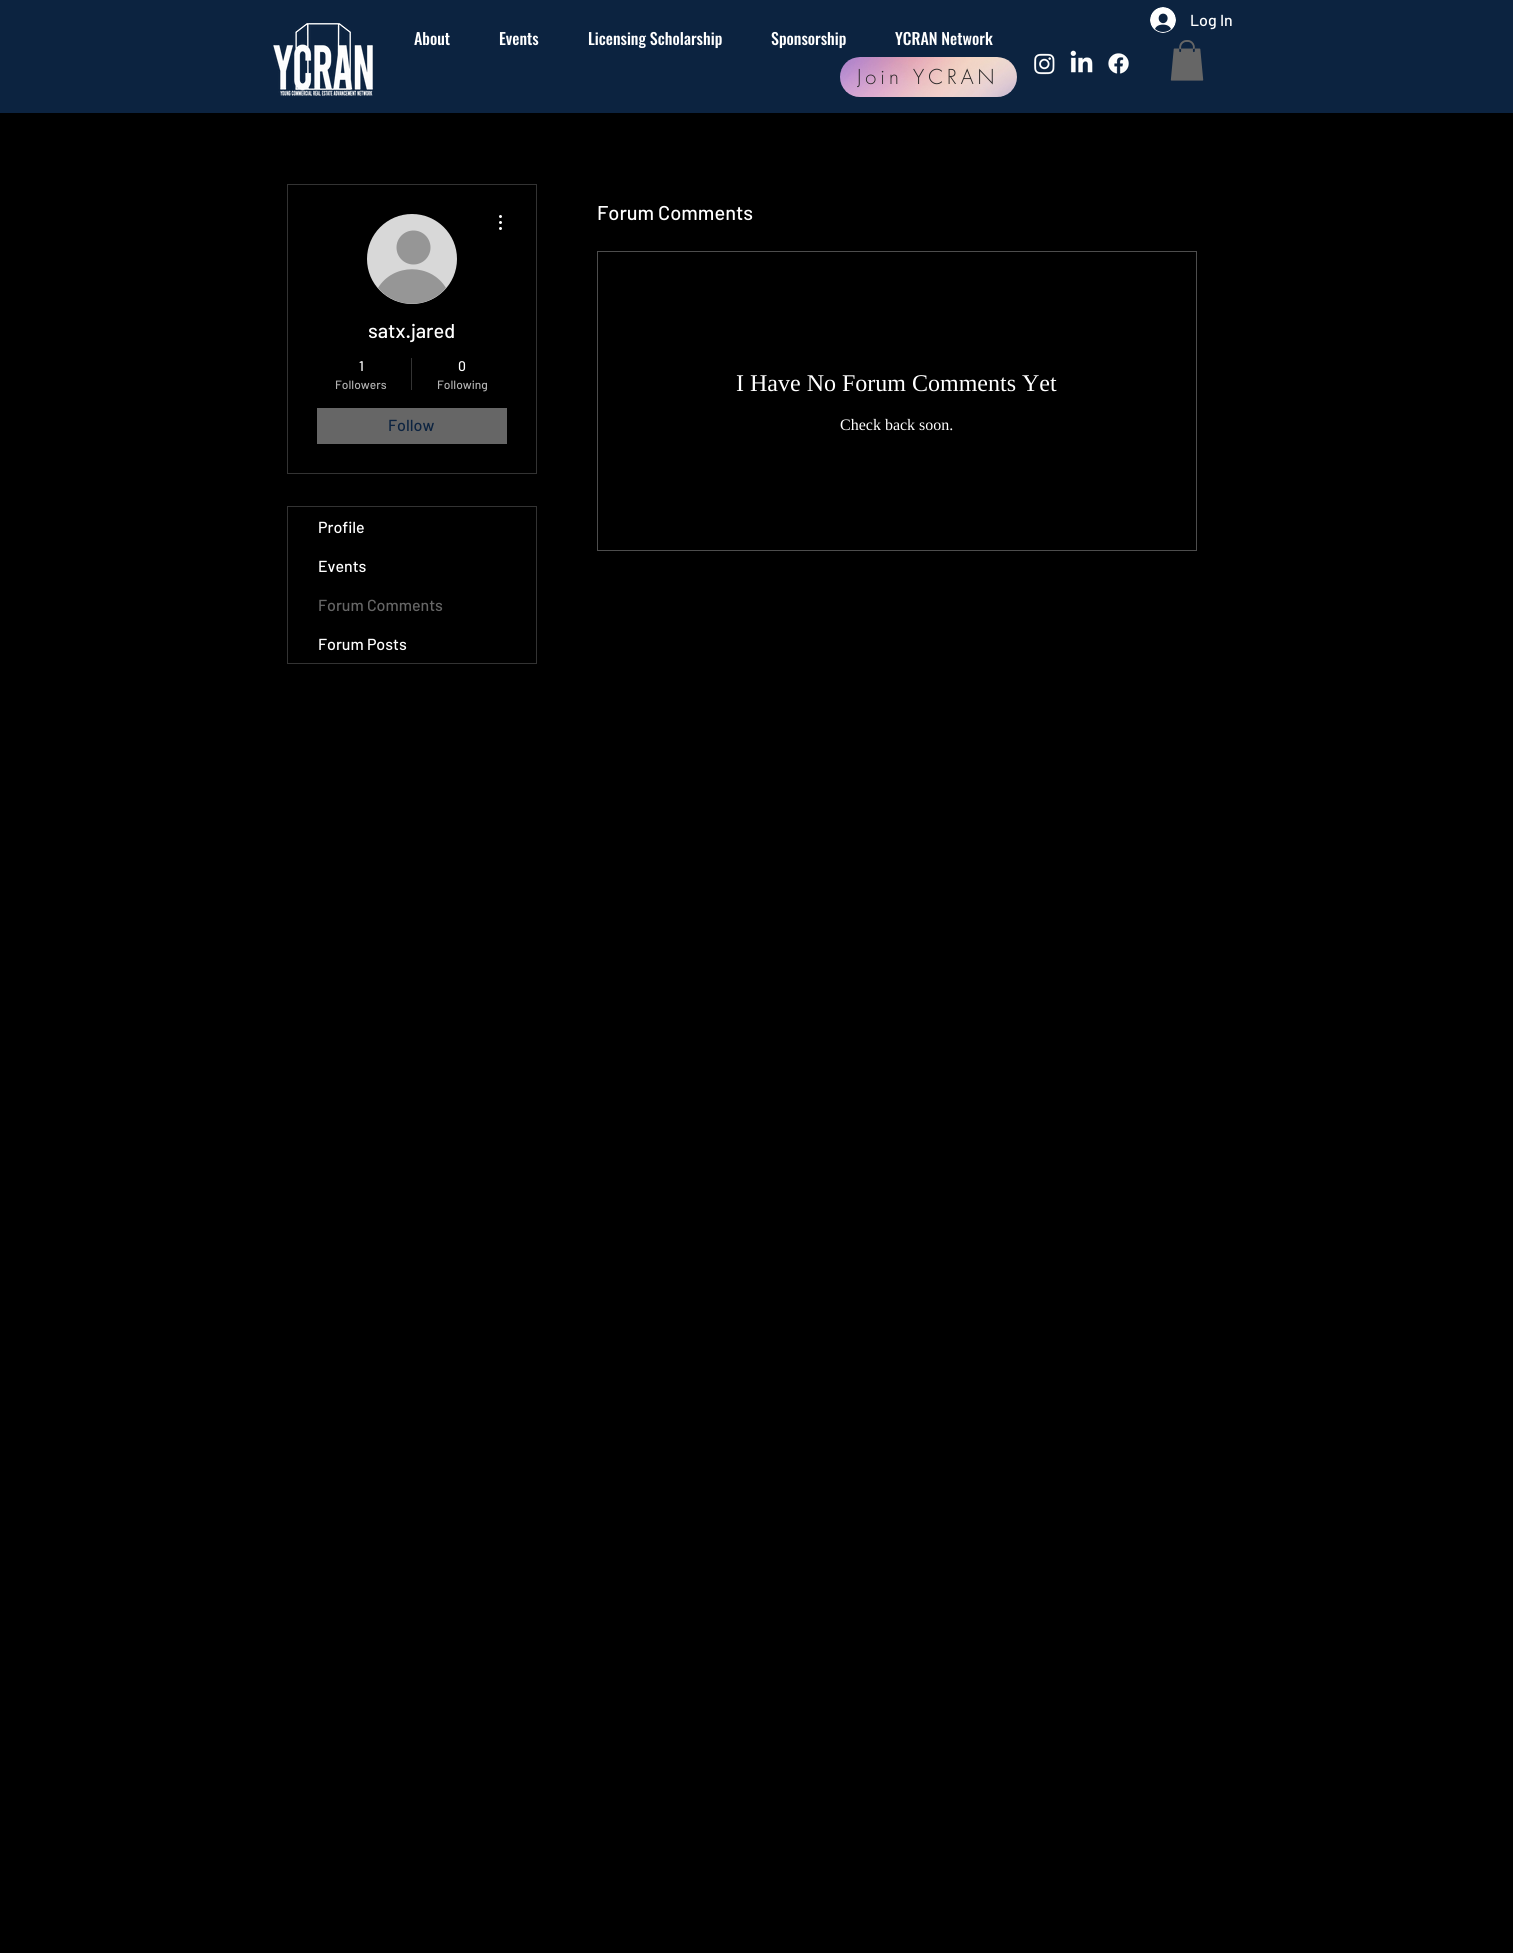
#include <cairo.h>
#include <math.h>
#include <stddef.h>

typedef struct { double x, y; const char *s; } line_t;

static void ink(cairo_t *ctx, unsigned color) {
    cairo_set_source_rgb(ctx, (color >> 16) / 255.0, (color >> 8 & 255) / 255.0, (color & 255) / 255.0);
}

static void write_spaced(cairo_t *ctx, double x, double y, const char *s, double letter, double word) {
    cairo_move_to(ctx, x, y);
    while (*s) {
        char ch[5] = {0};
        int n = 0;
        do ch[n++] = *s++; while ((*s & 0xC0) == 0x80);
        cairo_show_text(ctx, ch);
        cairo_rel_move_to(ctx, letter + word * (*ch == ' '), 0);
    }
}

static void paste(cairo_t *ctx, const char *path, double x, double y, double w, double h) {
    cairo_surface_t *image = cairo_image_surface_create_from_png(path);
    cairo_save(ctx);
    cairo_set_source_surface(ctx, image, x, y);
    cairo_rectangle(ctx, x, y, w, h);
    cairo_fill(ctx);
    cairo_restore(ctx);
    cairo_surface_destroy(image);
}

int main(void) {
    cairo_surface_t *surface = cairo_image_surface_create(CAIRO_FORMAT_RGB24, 1513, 1953);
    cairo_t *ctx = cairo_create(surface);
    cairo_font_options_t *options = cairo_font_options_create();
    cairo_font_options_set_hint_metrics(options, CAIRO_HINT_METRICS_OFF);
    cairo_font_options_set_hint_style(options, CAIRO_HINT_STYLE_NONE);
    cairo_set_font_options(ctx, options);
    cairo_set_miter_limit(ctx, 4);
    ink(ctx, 0x000000);
    cairo_paint(ctx);
    ink(ctx, 0x0C2340);
    cairo_rectangle(ctx, 0, 0, 1513, 113);
    cairo_fill(ctx);
    paste(ctx, "media/1.png", 273, 23, 100, 73);
    cairo_select_font_face(ctx, "Oswald Medium", CAIRO_FONT_SLANT_NORMAL, CAIRO_FONT_WEIGHT_NORMAL);
    cairo_set_font_size(ctx, 16);
    ink(ctx, 0xFFFFFF);
    {
        static const line_t items[] = {
            {414, 45, "About"},
            {499, 45, "Events"},
            {588, 45, "Licensing Scholarship"},
            {771, 45, "Sponsorship"},
            {895, 45, "YCRAN Network"},
        };
        for (size_t i = 0; i < sizeof items / sizeof *items; i++) {
            cairo_move_to(ctx, items[i].x, items[i].y);
            cairo_show_text(ctx, items[i].s);
        }
    }
    paste(ctx, "media/2.png", 1034, 53, 21, 22);
    paste(ctx, "media/3.png", 1070, 50, 23, 23);
    paste(ctx, "media/4.png", 1108, 53, 21, 21);
    paste(ctx, "media/5.png", 1170, 40, 34, 41);
    paste(ctx, "media/6.png", 1150, 7, 26, 26);
    cairo_select_font_face(ctx, "Barlow Medium", CAIRO_FONT_SLANT_NORMAL, CAIRO_FONT_WEIGHT_NORMAL);
    cairo_move_to(ctx, 1190, 26);
    cairo_show_text(ctx, "Log In");
    paste(ctx, "media/7.png", 840, 57, 177, 40);
    cairo_save(ctx);
    cairo_rectangle(ctx, 857, 64, 142, 26);
    cairo_clip(ctx);
    cairo_select_font_face(ctx, "futura Light", CAIRO_FONT_SLANT_NORMAL, CAIRO_FONT_WEIGHT_NORMAL);
    cairo_set_font_size(ctx, 20);
    ink(ctx, 0x282626);
    write_spaced(ctx, 857, 84, "Join YCRAN", 4, 0);
    cairo_restore(ctx);
    cairo_rectangle(ctx, 287.5, 184.5, 249, 289);
    ink(ctx, 0x333333);
    cairo_set_line_width(ctx, 1);
    cairo_stroke(ctx);
    ink(ctx, 0xD8D8D8);
    cairo_arc(ctx, 412, 259, 45, 0, 2 * M_PI);
    cairo_fill(ctx);
    ink(ctx, 0x969696);
    cairo_arc(ctx, 413.5, 247.5, 17, 0, 2 * M_PI);
    cairo_fill(ctx);
    cairo_new_path(ctx);
    cairo_move_to(ctx, 446, 288);
    cairo_curve_to(ctx, 428, 309, 396, 309, 378, 288);
    cairo_curve_to(ctx, 393, 263, 431, 263, 446, 288);
    cairo_close_path(ctx);
    cairo_fill(ctx);
    paste(ctx, "media/8.png", 499, 215, 3, 15);
    cairo_set_font_size(ctx, 20);
    ink(ctx, 0xFFFFFF);
    cairo_move_to(ctx, 368, 338);
    cairo_show_text(ctx, "satx.jared");
    cairo_set_font_size(ctx, 14);
    cairo_move_to(ctx, 359, 371);
    cairo_show_text(ctx, "1");
    cairo_set_font_size(ctx, 12);
    ink(ctx, 0xB3B3B3);
    cairo_move_to(ctx, 335, 389);
    cairo_show_text(ctx, "Followers");
    ink(ctx, 0x333333);
    cairo_rectangle(ctx, 411, 358, 1, 32);
    cairo_fill(ctx);
    cairo_set_font_size(ctx, 14);
    ink(ctx, 0xFFFFFF);
    cairo_move_to(ctx, 458, 371);
    cairo_show_text(ctx, "0");
    cairo_set_font_size(ctx, 12);
    ink(ctx, 0xB3B3B3);
    cairo_move_to(ctx, 437, 389);
    cairo_show_text(ctx, "Following");
    ink(ctx, 0x666666);
    cairo_rectangle(ctx, 317, 408, 190, 36);
    cairo_fill(ctx);
    cairo_set_font_size(ctx, 16);
    ink(ctx, 0x0C2340);
    cairo_move_to(ctx, 388, 431);
    cairo_show_text(ctx, "Follow");
    cairo_rectangle(ctx, 287.5, 506.5, 249, 157);
    ink(ctx, 0x333333);
    cairo_stroke(ctx);
    ink(ctx, 0xFFFFFF);
    cairo_move_to(ctx, 318, 533);
    cairo_show_text(ctx, "Profile");
    cairo_move_to(ctx, 318, 572);
    cairo_show_text(ctx, "Events");
    ink(ctx, 0x666666);
    cairo_move_to(ctx, 318, 611);
    cairo_show_text(ctx, "Forum Comments");
    ink(ctx, 0xFFFFFF);
    cairo_move_to(ctx, 318, 650);
    cairo_show_text(ctx, "Forum Posts");
    cairo_set_font_size(ctx, 20);
    cairo_move_to(ctx, 597, 220);
    cairo_show_text(ctx, "Forum Comments");
    cairo_rectangle(ctx, 597.5, 251.5, 599, 299);
    ink(ctx, 0x4D4D4D);
    cairo_stroke(ctx);
    cairo_select_font_face(ctx, "Liberation Serif", CAIRO_FONT_SLANT_NORMAL, CAIRO_FONT_WEIGHT_NORMAL);
    cairo_set_font_size(ctx, 24);
    ink(ctx, 0xFFFFFF);
    cairo_move_to(ctx, 736, 391);
    cairo_show_text(ctx, "I Have No Forum Comments Yet");
    cairo_set_font_size(ctx, 16);
    cairo_move_to(ctx, 840, 430);
    cairo_show_text(ctx, "Check back soon.");
    cairo_surface_write_to_png(surface, "image.png");
    cairo_font_options_destroy(options);
    cairo_destroy(ctx);
    cairo_surface_destroy(surface);
    return 0;
}
